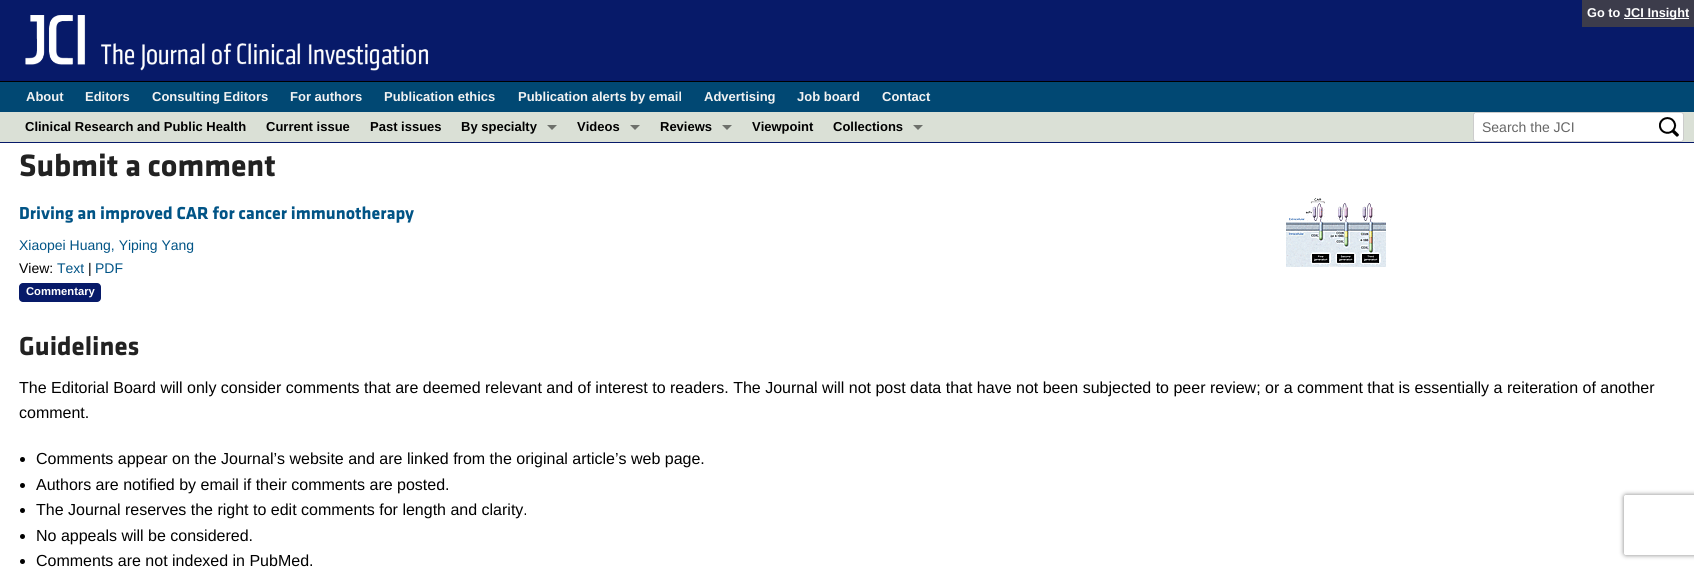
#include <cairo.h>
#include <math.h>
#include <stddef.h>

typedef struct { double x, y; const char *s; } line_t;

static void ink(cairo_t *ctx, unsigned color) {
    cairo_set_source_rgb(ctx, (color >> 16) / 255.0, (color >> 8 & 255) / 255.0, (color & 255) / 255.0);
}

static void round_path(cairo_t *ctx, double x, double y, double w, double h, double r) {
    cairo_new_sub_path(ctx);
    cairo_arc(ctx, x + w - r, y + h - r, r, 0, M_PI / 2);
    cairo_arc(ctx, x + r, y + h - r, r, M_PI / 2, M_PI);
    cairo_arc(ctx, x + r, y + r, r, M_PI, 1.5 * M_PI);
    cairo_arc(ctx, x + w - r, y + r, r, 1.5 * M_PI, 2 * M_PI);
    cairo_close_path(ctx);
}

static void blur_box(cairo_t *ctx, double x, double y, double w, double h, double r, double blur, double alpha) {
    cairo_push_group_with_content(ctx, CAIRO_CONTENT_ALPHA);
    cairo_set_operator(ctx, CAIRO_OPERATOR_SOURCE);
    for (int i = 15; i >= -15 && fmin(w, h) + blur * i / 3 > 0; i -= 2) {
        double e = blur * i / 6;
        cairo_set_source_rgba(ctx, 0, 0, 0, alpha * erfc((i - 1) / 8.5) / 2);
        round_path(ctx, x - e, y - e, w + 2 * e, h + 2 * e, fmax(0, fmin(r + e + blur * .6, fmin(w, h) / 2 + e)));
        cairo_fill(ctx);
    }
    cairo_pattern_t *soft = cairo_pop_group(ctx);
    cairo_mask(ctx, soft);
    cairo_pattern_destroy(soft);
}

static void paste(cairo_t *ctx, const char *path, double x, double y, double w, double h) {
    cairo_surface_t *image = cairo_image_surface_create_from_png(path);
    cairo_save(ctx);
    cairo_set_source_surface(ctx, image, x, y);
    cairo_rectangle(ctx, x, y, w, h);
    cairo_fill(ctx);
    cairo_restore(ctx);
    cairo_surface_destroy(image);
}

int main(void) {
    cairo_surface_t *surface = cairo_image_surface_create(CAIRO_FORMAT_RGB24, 1694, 569);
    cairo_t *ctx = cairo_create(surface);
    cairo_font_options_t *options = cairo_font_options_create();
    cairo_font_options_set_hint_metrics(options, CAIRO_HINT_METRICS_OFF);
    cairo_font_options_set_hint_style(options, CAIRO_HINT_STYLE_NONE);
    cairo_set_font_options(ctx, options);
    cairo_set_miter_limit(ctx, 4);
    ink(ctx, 0xFFFFFF);
    cairo_paint(ctx);
    ink(ctx, 0x071A69);
    cairo_rectangle(ctx, 0, 0, 1694, 81);
    cairo_fill(ctx);
    ink(ctx, 0x3C3C4B);
    cairo_rectangle(ctx, 1582, 0, 112, 27);
    cairo_fill(ctx);
    cairo_select_font_face(ctx, "Liberation Sans", CAIRO_FONT_SLANT_NORMAL, CAIRO_FONT_WEIGHT_BOLD);
    cairo_set_font_size(ctx, 12.75);
    ink(ctx, 0xFFFFFF);
    cairo_move_to(ctx, 1587, 17);
    cairo_show_text(ctx, "Go to");
    cairo_rectangle(ctx, 1624, 18, 65, 1);
    cairo_fill(ctx);
    cairo_move_to(ctx, 1624, 17);
    cairo_show_text(ctx, "JCI Insight");
    paste(ctx, "media/1.png", 25, 15, 404, 56);
    ink(ctx, 0x014873);
    cairo_rectangle(ctx, 0, 82, 1694, 30);
    cairo_fill(ctx);
    ink(ctx, 0x000000);
    cairo_rectangle(ctx, 0, 81, 1694, 1);
    cairo_fill(ctx);
    cairo_set_font_size(ctx, 13);
    ink(ctx, 0xF2F2F2);
    {
        static const line_t items[] = {
            {26, 101, "About"},
            {85, 101, "Editors"},
            {152, 101, "Consulting Editors"},
            {290, 101, "For authors"},
            {384, 101, "Publication ethics"},
            {518, 101, "Publication alerts by email"},
            {704, 101, "Advertising"},
            {797, 101, "Job board"},
            {882, 101, "Contact"},
        };
        for (size_t i = 0; i < sizeof items / sizeof *items; i++) {
            cairo_move_to(ctx, items[i].x, items[i].y);
            cairo_show_text(ctx, items[i].s);
        }
    }
    ink(ctx, 0xDAE0D6);
    cairo_rectangle(ctx, 0, 112, 1694, 30);
    cairo_fill(ctx);
    ink(ctx, 0x071A69);
    cairo_rectangle(ctx, 0, 142, 1694, 1);
    cairo_fill(ctx);
    ink(ctx, 0x000000);
    {
        static const line_t items[] = {
            {25, 131, "Clinical Research and Public Health"},
            {266, 131, "Current issue"},
            {370, 131, "Past issues"},
            {461, 131, "By specialty"},
        };
        for (size_t i = 0; i < sizeof items / sizeof *items; i++) {
            cairo_move_to(ctx, items[i].x, items[i].y);
            cairo_show_text(ctx, items[i].s);
        }
    }
    ink(ctx, 0x6D706B);
    cairo_new_path(ctx);
    cairo_move_to(ctx, 547, 125);
    cairo_line_to(ctx, 557, 125);
    cairo_line_to(ctx, 552, 130);
    cairo_close_path(ctx);
    cairo_fill(ctx);
    ink(ctx, 0x000000);
    cairo_move_to(ctx, 577, 131);
    cairo_show_text(ctx, "Videos");
    ink(ctx, 0x6D706B);
    cairo_new_path(ctx);
    cairo_move_to(ctx, 630, 125);
    cairo_line_to(ctx, 640, 125);
    cairo_line_to(ctx, 635, 130);
    cairo_close_path(ctx);
    cairo_fill(ctx);
    ink(ctx, 0x000000);
    cairo_move_to(ctx, 660, 131);
    cairo_show_text(ctx, "Reviews");
    ink(ctx, 0x6D706B);
    cairo_new_path(ctx);
    cairo_move_to(ctx, 722, 125);
    cairo_line_to(ctx, 732, 125);
    cairo_line_to(ctx, 727, 130);
    cairo_close_path(ctx);
    cairo_fill(ctx);
    ink(ctx, 0x000000);
    cairo_move_to(ctx, 752, 131);
    cairo_show_text(ctx, "Viewpoint");
    cairo_move_to(ctx, 833, 131);
    cairo_show_text(ctx, "Collections");
    ink(ctx, 0x6D706B);
    cairo_new_path(ctx);
    cairo_move_to(ctx, 913, 125);
    cairo_line_to(ctx, 923, 125);
    cairo_line_to(ctx, 918, 130);
    cairo_close_path(ctx);
    cairo_fill(ctx);
    ink(ctx, 0xFFFFFF);
    round_path(ctx, 1473.5, 112.5, 210, 29, 2.5);
    cairo_fill_preserve(ctx);
    ink(ctx, 0xCCCCCC);
    cairo_set_line_width(ctx, 1);
    cairo_stroke(ctx);
    ink(ctx, 0xFFFFFF);
    round_path(ctx, 1474, 113, 178, 27, 3);
    cairo_fill(ctx);
    cairo_select_font_face(ctx, "Liberation Sans", CAIRO_FONT_SLANT_NORMAL, CAIRO_FONT_WEIGHT_NORMAL);
    cairo_set_font_size(ctx, 14);
    ink(ctx, 0x666666);
    cairo_move_to(ctx, 1482, 132);
    cairo_show_text(ctx, "Search the JCI");
    paste(ctx, "media/2.png", 1659, 117, 20, 20);
    cairo_select_font_face(ctx, "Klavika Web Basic", CAIRO_FONT_SLANT_NORMAL, CAIRO_FONT_WEIGHT_BOLD);
    cairo_set_font_size(ctx, 32);
    ink(ctx, 0x222222);
    cairo_move_to(ctx, 19, 176);
    cairo_show_text(ctx, "Submit a comment");
    cairo_set_font_size(ctx, 18);
    ink(ctx, 0x015486);
    cairo_move_to(ctx, 19, 219);
    cairo_show_text(ctx, "Driving an improved CAR for cancer immunotherapy");
    cairo_select_font_face(ctx, "Liberation Sans", CAIRO_FONT_SLANT_NORMAL, CAIRO_FONT_WEIGHT_NORMAL);
    cairo_set_font_size(ctx, 14);
    cairo_move_to(ctx, 19, 250);
    cairo_show_text(ctx, "Xiaopei Huang, Yiping Yang");
    ink(ctx, 0x000000);
    cairo_move_to(ctx, 19, 273);
    cairo_show_text(ctx, "View:");
    ink(ctx, 0x015486);
    cairo_move_to(ctx, 57, 273);
    cairo_show_text(ctx, "Text");
    ink(ctx, 0x000000);
    cairo_move_to(ctx, 88, 273);
    cairo_show_text(ctx, "|");
    ink(ctx, 0x015486);
    cairo_move_to(ctx, 95, 273);
    cairo_show_text(ctx, "PDF");
    ink(ctx, 0x071A69);
    round_path(ctx, 19, 283, 82, 19, 4);
    cairo_fill(ctx);
    cairo_select_font_face(ctx, "Liberation Sans", CAIRO_FONT_SLANT_NORMAL, CAIRO_FONT_WEIGHT_BOLD);
    cairo_set_font_size(ctx, 11.25);
    ink(ctx, 0xFFFFFF);
    cairo_move_to(ctx, 26, 295);
    cairo_show_text(ctx, "Commentary");
    paste(ctx, "media/3.png", 1286, 198, 100, 69);
    cairo_select_font_face(ctx, "Klavika Web Basic", CAIRO_FONT_SLANT_NORMAL, CAIRO_FONT_WEIGHT_BOLD);
    cairo_set_font_size(ctx, 27);
    ink(ctx, 0x222222);
    cairo_move_to(ctx, 19, 355);
    cairo_show_text(ctx, "Guidelines");
    cairo_select_font_face(ctx, "Liberation Sans", CAIRO_FONT_SLANT_NORMAL, CAIRO_FONT_WEIGHT_NORMAL);
    cairo_set_font_size(ctx, 16);
    ink(ctx, 0x000000);
    cairo_move_to(ctx, 19, 393);
    cairo_show_text(ctx, "The Editorial Board will only consider comments that are deemed relevant and of interest to readers. The Journal will not post data that have not been subjected to peer review; or a comment that is essentially a reiteration of another");
    cairo_move_to(ctx, 19, 418);
    cairo_show_text(ctx, "comment.");
    cairo_new_path(ctx);
    cairo_arc(ctx, 22.5, 459.5, 2.5, 0, 2 * M_PI);
    cairo_fill(ctx);
    cairo_move_to(ctx, 36, 464);
    cairo_show_text(ctx, "Comments appear on the Journal’s website and are linked from the original article’s web page.");
    cairo_new_path(ctx);
    cairo_arc(ctx, 22.5, 485.5, 2.5, 0, 2 * M_PI);
    cairo_fill(ctx);
    cairo_move_to(ctx, 36, 490);
    cairo_show_text(ctx, "Authors are notified by email if their comments are posted.");
    cairo_new_path(ctx);
    cairo_arc(ctx, 22.5, 510.5, 2.5, 0, 2 * M_PI);
    cairo_fill(ctx);
    cairo_move_to(ctx, 36, 515);
    cairo_show_text(ctx, "The Journal reserves the right to edit comments for length and clarity.");
    cairo_new_path(ctx);
    cairo_arc(ctx, 22.5, 536.5, 2.5, 0, 2 * M_PI);
    cairo_fill(ctx);
    cairo_move_to(ctx, 36, 541);
    cairo_show_text(ctx, "No appeals will be considered.");
    cairo_new_path(ctx);
    cairo_arc(ctx, 22.5, 561.5, 2.5, 0, 2 * M_PI);
    cairo_fill(ctx);
    cairo_move_to(ctx, 36, 566);
    cairo_show_text(ctx, "Comments are not indexed in PubMed.");
    cairo_save(ctx);
    cairo_set_fill_rule(ctx, CAIRO_FILL_RULE_EVEN_ODD);
    cairo_new_path(ctx);
    cairo_move_to(ctx, 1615, 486);
    cairo_line_to(ctx, 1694, 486);
    cairo_line_to(ctx, 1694, 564);
    cairo_line_to(ctx, 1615, 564);
    cairo_close_path(ctx);
    cairo_move_to(ctx, 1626, 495);
    cairo_line_to(ctx, 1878, 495);
    cairo_curve_to(ctx, 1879, 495, 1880, 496, 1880, 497);
    cairo_line_to(ctx, 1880, 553);
    cairo_curve_to(ctx, 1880, 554, 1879, 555, 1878, 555);
    cairo_line_to(ctx, 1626, 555);
    cairo_curve_to(ctx, 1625, 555, 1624, 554, 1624, 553);
    cairo_line_to(ctx, 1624, 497);
    cairo_curve_to(ctx, 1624, 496, 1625, 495, 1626, 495);
    cairo_close_path(ctx);
    cairo_clip(ctx);
    ink(ctx, 0x808080);
    blur_box(ctx, 1624, 495, 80, 60, 2, 2.5, 1);
    cairo_restore(ctx);
    cairo_surface_write_to_png(surface, "image.png");
    cairo_font_options_destroy(options);
    cairo_destroy(ctx);
    cairo_surface_destroy(surface);
    return 0;
}
